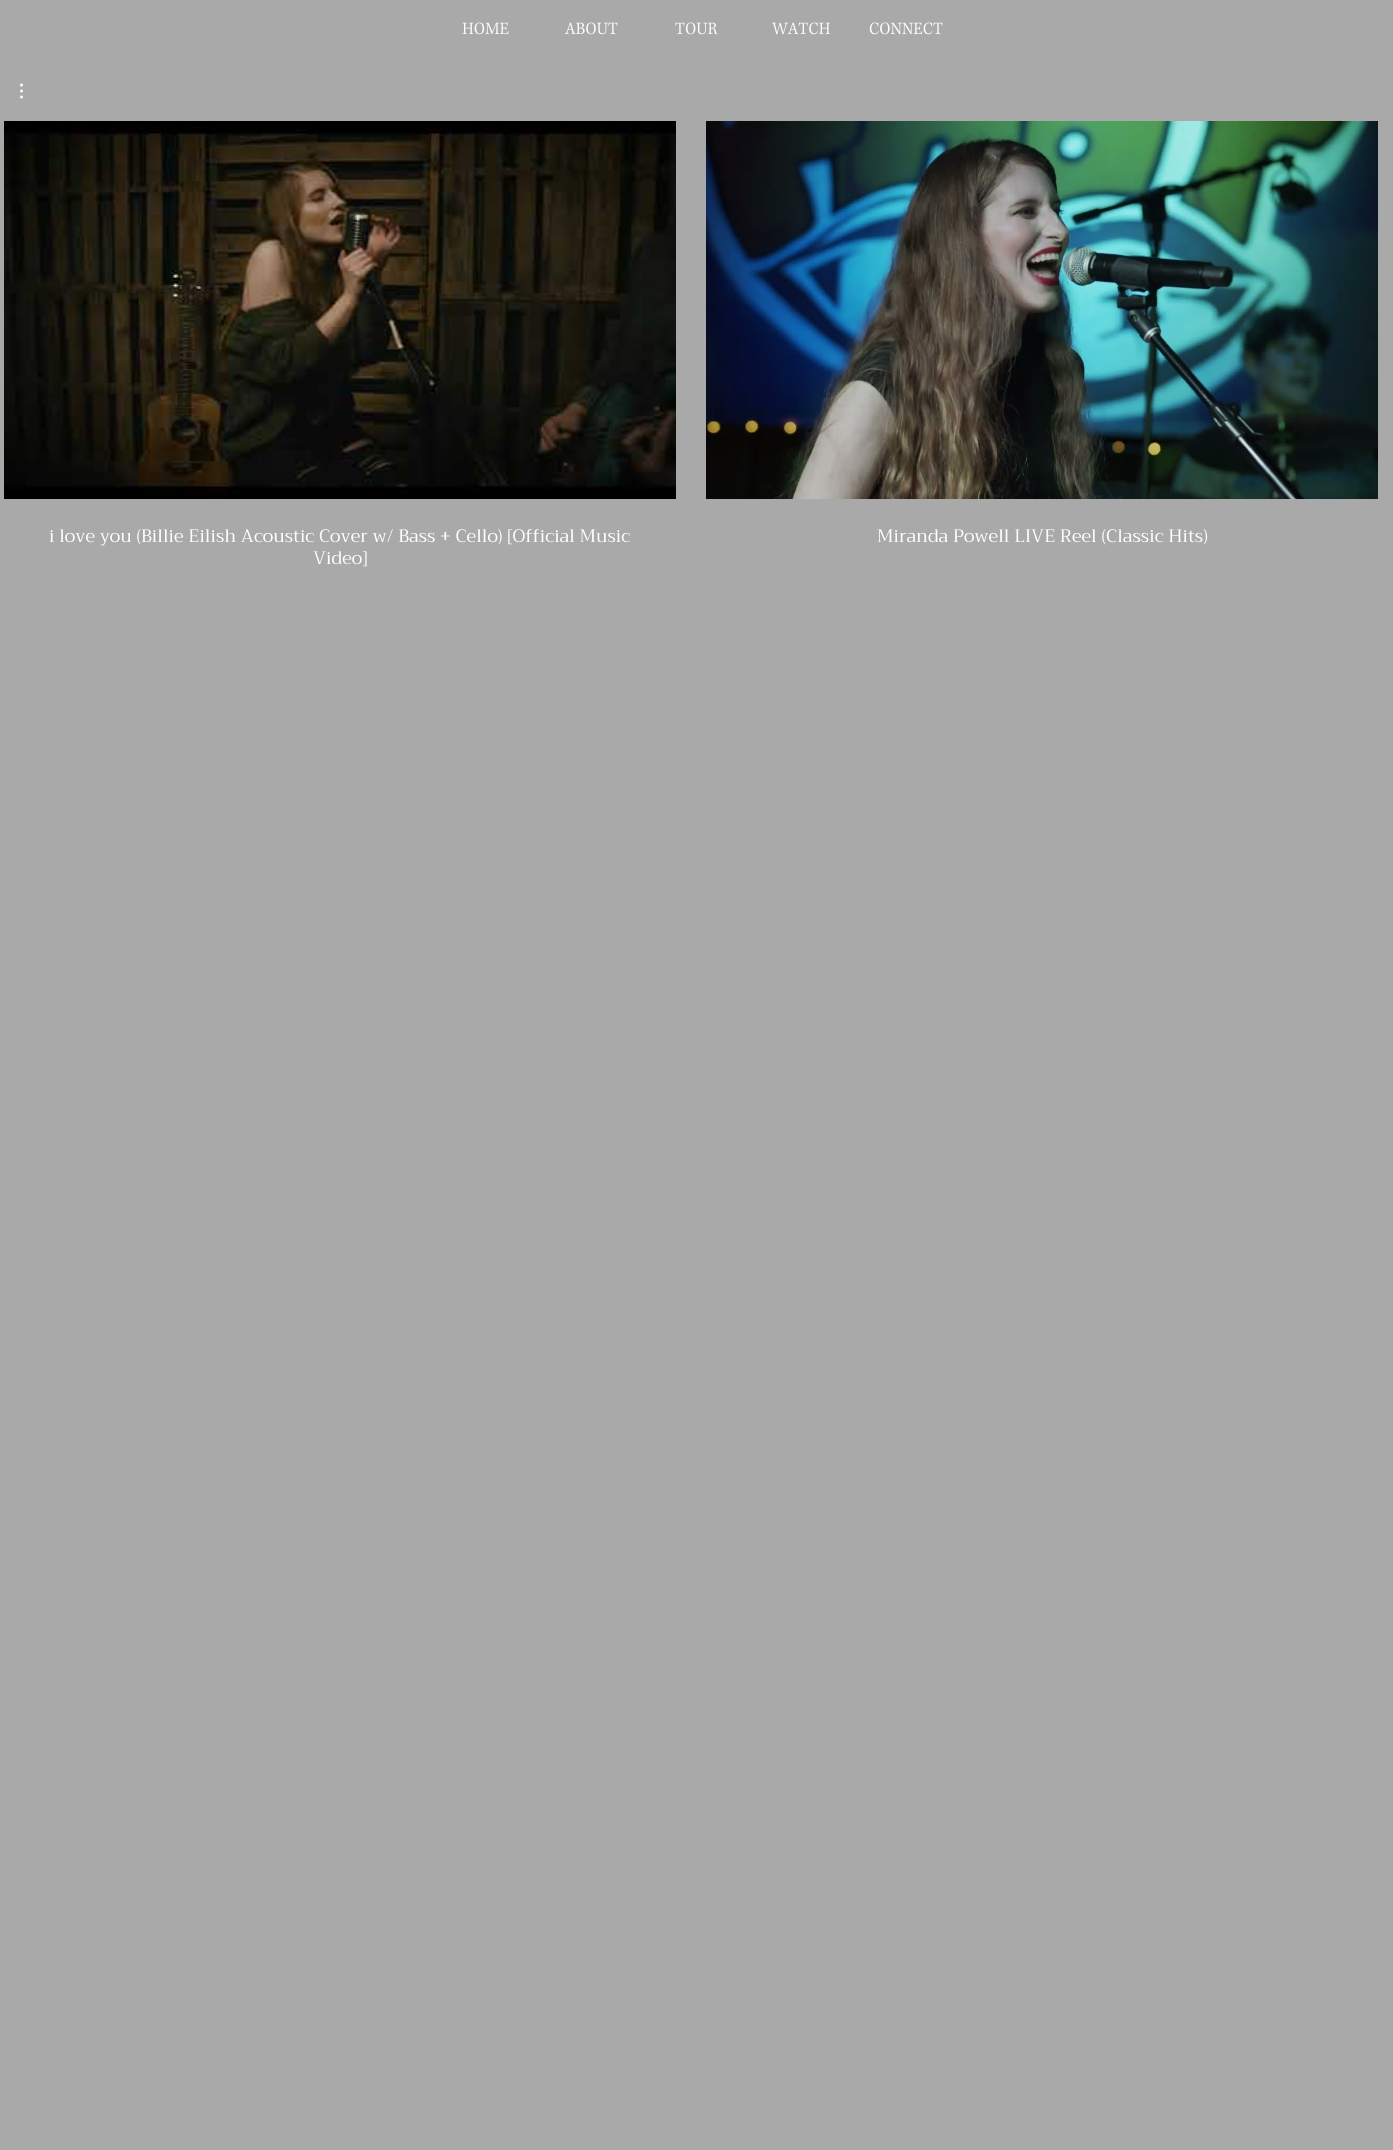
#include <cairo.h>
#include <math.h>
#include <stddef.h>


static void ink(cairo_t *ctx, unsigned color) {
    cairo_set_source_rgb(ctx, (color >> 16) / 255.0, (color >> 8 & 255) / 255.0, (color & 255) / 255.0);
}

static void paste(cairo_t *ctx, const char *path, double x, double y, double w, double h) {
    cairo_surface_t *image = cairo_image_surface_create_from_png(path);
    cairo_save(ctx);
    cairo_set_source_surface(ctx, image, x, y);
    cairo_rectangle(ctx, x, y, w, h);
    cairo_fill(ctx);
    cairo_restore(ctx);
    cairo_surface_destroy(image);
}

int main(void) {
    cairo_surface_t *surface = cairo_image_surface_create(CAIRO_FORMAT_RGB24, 1393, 2150);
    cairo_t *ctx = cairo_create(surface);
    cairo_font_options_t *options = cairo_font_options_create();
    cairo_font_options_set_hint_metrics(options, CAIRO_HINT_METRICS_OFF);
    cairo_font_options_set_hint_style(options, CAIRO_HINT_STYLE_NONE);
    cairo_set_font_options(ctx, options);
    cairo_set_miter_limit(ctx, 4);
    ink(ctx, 0xA9A9A9);
    cairo_paint(ctx);
    paste(ctx, "media/1.png", 462, 22, 47, 13);
    paste(ctx, "media/2.png", 564, 22, 54, 13);
    paste(ctx, "media/3.png", 675, 22, 43, 13);
    paste(ctx, "media/4.png", 772, 22, 58, 13);
    paste(ctx, "media/5.png", 869, 22, 74, 13);
    paste(ctx, "media/6.png", 20, 83, 3, 16);
    paste(ctx, "media/7.png", 4, 121, 672, 378);
    cairo_select_font_face(ctx, "Trirong", CAIRO_FONT_SLANT_NORMAL, CAIRO_FONT_WEIGHT_NORMAL);
    cairo_set_font_size(ctx, 18);
    ink(ctx, 0xFFFFFF);
    cairo_move_to(ctx, 49, 542);
    cairo_show_text(ctx, "i love you (Billie Eilish Acoustic Cover w/ Bass + Cello) [Official Music");
    cairo_move_to(ctx, 313, 564);
    cairo_show_text(ctx, "Video]");
    paste(ctx, "media/8.png", 706, 121, 672, 378);
    cairo_move_to(ctx, 877, 542);
    cairo_show_text(ctx, "Miranda Powell LIVE Reel (Classic Hits)");
    cairo_surface_write_to_png(surface, "image.png");
    cairo_font_options_destroy(options);
    cairo_destroy(ctx);
    cairo_surface_destroy(surface);
    return 0;
}
